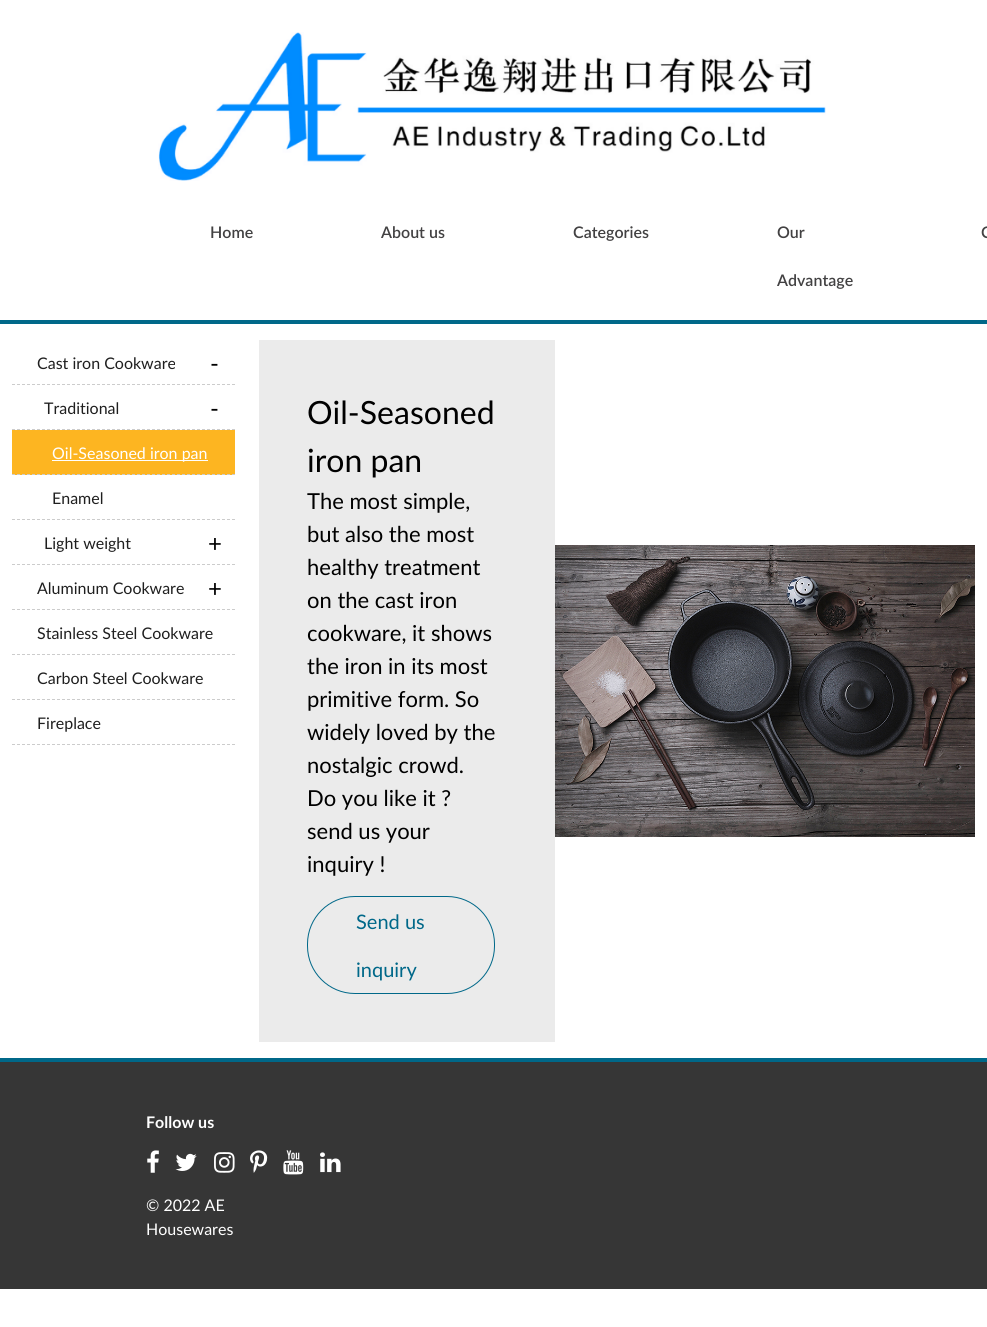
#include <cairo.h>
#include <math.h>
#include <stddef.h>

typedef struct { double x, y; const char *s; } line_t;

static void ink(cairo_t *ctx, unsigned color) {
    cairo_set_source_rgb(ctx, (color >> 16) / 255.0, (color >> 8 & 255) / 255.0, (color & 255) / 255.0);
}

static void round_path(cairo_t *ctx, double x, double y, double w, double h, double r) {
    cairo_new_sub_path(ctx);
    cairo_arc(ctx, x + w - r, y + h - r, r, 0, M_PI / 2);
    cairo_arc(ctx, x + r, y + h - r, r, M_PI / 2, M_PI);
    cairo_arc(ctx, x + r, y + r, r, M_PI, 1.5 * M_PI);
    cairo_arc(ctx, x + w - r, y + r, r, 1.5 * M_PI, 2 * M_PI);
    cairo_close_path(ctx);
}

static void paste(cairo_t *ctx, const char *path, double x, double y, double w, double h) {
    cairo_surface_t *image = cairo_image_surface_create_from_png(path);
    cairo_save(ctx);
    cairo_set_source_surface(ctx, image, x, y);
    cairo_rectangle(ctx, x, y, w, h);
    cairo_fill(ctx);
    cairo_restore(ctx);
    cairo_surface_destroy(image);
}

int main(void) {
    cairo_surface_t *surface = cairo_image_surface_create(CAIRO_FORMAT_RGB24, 987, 1327);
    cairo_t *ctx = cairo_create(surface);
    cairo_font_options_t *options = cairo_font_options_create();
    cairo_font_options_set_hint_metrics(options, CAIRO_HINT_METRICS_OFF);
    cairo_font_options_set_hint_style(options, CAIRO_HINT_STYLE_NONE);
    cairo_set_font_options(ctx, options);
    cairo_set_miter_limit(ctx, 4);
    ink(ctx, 0xFFFFFF);
    cairo_paint(ctx);
    ink(ctx, 0x006889);
    cairo_rectangle(ctx, 0, 320, 987, 4);
    cairo_fill(ctx);
    paste(ctx, "media/1.png", 158, 32, 668, 149);
    cairo_select_font_face(ctx, "Lato SemiBold", CAIRO_FONT_SLANT_NORMAL, CAIRO_FONT_WEIGHT_NORMAL);
    cairo_set_font_size(ctx, 16);
    ink(ctx, 0x424142);
    {
        static const line_t items[] = {
            {210, 238, "Home"},
            {381, 238, "About us"},
            {573, 238, "Categories"},
            {777, 238, "Our"},
            {777, 286, "Advantage"},
            {981, 238, "C"},
        };
        for (size_t i = 0; i < sizeof items / sizeof *items; i++) {
            cairo_move_to(ctx, items[i].x, items[i].y);
            cairo_show_text(ctx, items[i].s);
        }
    }
    cairo_new_path(ctx);
    cairo_move_to(ctx, 12, 384.5);
    cairo_line_to(ctx, 235, 384.5);
    ink(ctx, 0xCCCCCC);
    cairo_set_line_width(ctx, 1);
    cairo_set_dash(ctx, (double[]){3, 2}, 2, 0);
    cairo_stroke(ctx);
    cairo_select_font_face(ctx, "Lato", CAIRO_FONT_SLANT_NORMAL, CAIRO_FONT_WEIGHT_NORMAL);
    ink(ctx, 0x1F1F1F);
    cairo_move_to(ctx, 37, 369);
    cairo_show_text(ctx, "Cast iron Cookware");
    cairo_set_font_size(ctx, 24);
    ink(ctx, 0x000000);
    cairo_move_to(ctx, 210, 372);
    cairo_show_text(ctx, "-");
    cairo_new_path(ctx);
    cairo_move_to(ctx, 12, 429.5);
    cairo_line_to(ctx, 235, 429.5);
    ink(ctx, 0xCCCCCC);
    cairo_stroke(ctx);
    cairo_set_font_size(ctx, 16);
    ink(ctx, 0x1F1F1F);
    cairo_move_to(ctx, 44, 414);
    cairo_show_text(ctx, "Traditional");
    cairo_set_font_size(ctx, 24);
    ink(ctx, 0x000000);
    cairo_move_to(ctx, 210, 417);
    cairo_show_text(ctx, "-");
    ink(ctx, 0xFDB521);
    cairo_rectangle(ctx, 12, 430, 223, 45);
    cairo_fill(ctx);
    cairo_new_path(ctx);
    cairo_move_to(ctx, 12, 474.5);
    cairo_line_to(ctx, 235, 474.5);
    ink(ctx, 0xCCCCCC);
    cairo_stroke(ctx);
    ink(ctx, 0xFFFFFF);
    cairo_rectangle(ctx, 52, 460, 156, 1);
    cairo_fill(ctx);
    cairo_set_font_size(ctx, 16);
    cairo_move_to(ctx, 52, 459);
    cairo_show_text(ctx, "Oil-Seasoned iron pan");
    cairo_new_path(ctx);
    cairo_move_to(ctx, 12, 519.5);
    cairo_line_to(ctx, 235, 519.5);
    ink(ctx, 0xCCCCCC);
    cairo_stroke(ctx);
    ink(ctx, 0x1F1F1F);
    cairo_move_to(ctx, 52, 504);
    cairo_show_text(ctx, "Enamel");
    cairo_new_path(ctx);
    cairo_move_to(ctx, 12, 564.5);
    cairo_line_to(ctx, 235, 564.5);
    ink(ctx, 0xCCCCCC);
    cairo_stroke(ctx);
    ink(ctx, 0x1F1F1F);
    cairo_move_to(ctx, 44, 549);
    cairo_show_text(ctx, "Light weight");
    cairo_set_font_size(ctx, 24);
    ink(ctx, 0x000000);
    cairo_move_to(ctx, 208, 552);
    cairo_show_text(ctx, "+");
    cairo_new_path(ctx);
    cairo_move_to(ctx, 12, 609.5);
    cairo_line_to(ctx, 235, 609.5);
    ink(ctx, 0xCCCCCC);
    cairo_stroke(ctx);
    cairo_set_font_size(ctx, 16);
    ink(ctx, 0x1F1F1F);
    cairo_move_to(ctx, 37, 594);
    cairo_show_text(ctx, "Aluminum Cookware");
    cairo_set_font_size(ctx, 24);
    ink(ctx, 0x000000);
    cairo_move_to(ctx, 208, 597);
    cairo_show_text(ctx, "+");
    cairo_new_path(ctx);
    cairo_move_to(ctx, 12, 654.5);
    cairo_line_to(ctx, 235, 654.5);
    ink(ctx, 0xCCCCCC);
    cairo_stroke(ctx);
    cairo_set_font_size(ctx, 16);
    ink(ctx, 0x1F1F1F);
    cairo_move_to(ctx, 37, 639);
    cairo_show_text(ctx, "Stainless Steel Cookware");
    cairo_new_path(ctx);
    cairo_move_to(ctx, 12, 699.5);
    cairo_line_to(ctx, 235, 699.5);
    ink(ctx, 0xCCCCCC);
    cairo_stroke(ctx);
    ink(ctx, 0x1F1F1F);
    cairo_move_to(ctx, 37, 684);
    cairo_show_text(ctx, "Carbon Steel Cookware");
    cairo_new_path(ctx);
    cairo_move_to(ctx, 12, 744.5);
    cairo_line_to(ctx, 235, 744.5);
    ink(ctx, 0xCCCCCC);
    cairo_stroke(ctx);
    ink(ctx, 0x1F1F1F);
    cairo_move_to(ctx, 37, 729);
    cairo_show_text(ctx, "Fireplace");
    ink(ctx, 0xEBEBEB);
    cairo_rectangle(ctx, 259, 340, 296, 702);
    cairo_fill(ctx);
    cairo_set_font_size(ctx, 32);
    ink(ctx, 0x000000);
    cairo_move_to(ctx, 307, 424);
    cairo_show_text(ctx, "Oil-Seasoned");
    cairo_move_to(ctx, 307, 472);
    cairo_show_text(ctx, "iron pan");
    cairo_set_font_size(ctx, 22);
    {
        static const line_t items[] = {
            {307, 509, "The most simple,"},
            {307, 542, "but also the most"},
            {307, 575, "healthy treatment"},
            {307, 608, "on the cast iron"},
            {307, 641, "cookware, it shows"},
            {307, 674, "the iron in its most"},
            {307, 707, "primitive form. So"},
            {307, 740, "widely loved by the"},
            {307, 773, "nostalgic crowd."},
            {307, 806, "Do you like it ?"},
            {307, 839, "send us your"},
            {307, 872, "inquiry !"},
        };
        for (size_t i = 0; i < sizeof items / sizeof *items; i++) {
            cairo_move_to(ctx, items[i].x, items[i].y);
            cairo_show_text(ctx, items[i].s);
        }
    }
    round_path(ctx, 307.5, 896.5, 187, 97, 47.5);
    ink(ctx, 0x006889);
    cairo_set_dash(ctx, NULL, 0, 0);
    cairo_stroke(ctx);
    cairo_set_font_size(ctx, 20);
    cairo_move_to(ctx, 356, 929);
    cairo_show_text(ctx, "Send us");
    cairo_move_to(ctx, 356, 977);
    cairo_show_text(ctx, "inquiry");
    paste(ctx, "media/2.png", 555, 545, 420, 292);
    ink(ctx, 0x363636);
    cairo_rectangle(ctx, 0, 1062, 987, 227);
    cairo_fill(ctx);
    ink(ctx, 0x006889);
    cairo_rectangle(ctx, 0, 1058, 987, 4);
    cairo_fill(ctx);
    cairo_select_font_face(ctx, "Lato", CAIRO_FONT_SLANT_NORMAL, CAIRO_FONT_WEIGHT_BOLD);
    cairo_set_font_size(ctx, 16);
    ink(ctx, 0xFFFFFF);
    cairo_move_to(ctx, 146, 1128);
    cairo_show_text(ctx, "Follow us");
    paste(ctx, "media/3.png", 147, 1150, 12, 23);
    paste(ctx, "media/4.png", 175, 1153, 22, 18);
    paste(ctx, "media/5.png", 214, 1152, 21, 21);
    paste(ctx, "media/6.png", 250, 1150, 18, 23);
    paste(ctx, "media/7.png", 283, 1150, 21, 25);
    paste(ctx, "media/8.png", 320, 1152, 21, 21);
    cairo_select_font_face(ctx, "Lato", CAIRO_FONT_SLANT_NORMAL, CAIRO_FONT_WEIGHT_NORMAL);
    cairo_move_to(ctx, 146, 1211);
    cairo_show_text(ctx, "© 2022 AE");
    cairo_move_to(ctx, 146, 1235);
    cairo_show_text(ctx, "Housewares");
    cairo_surface_write_to_png(surface, "image.png");
    cairo_font_options_destroy(options);
    cairo_destroy(ctx);
    cairo_surface_destroy(surface);
    return 0;
}
